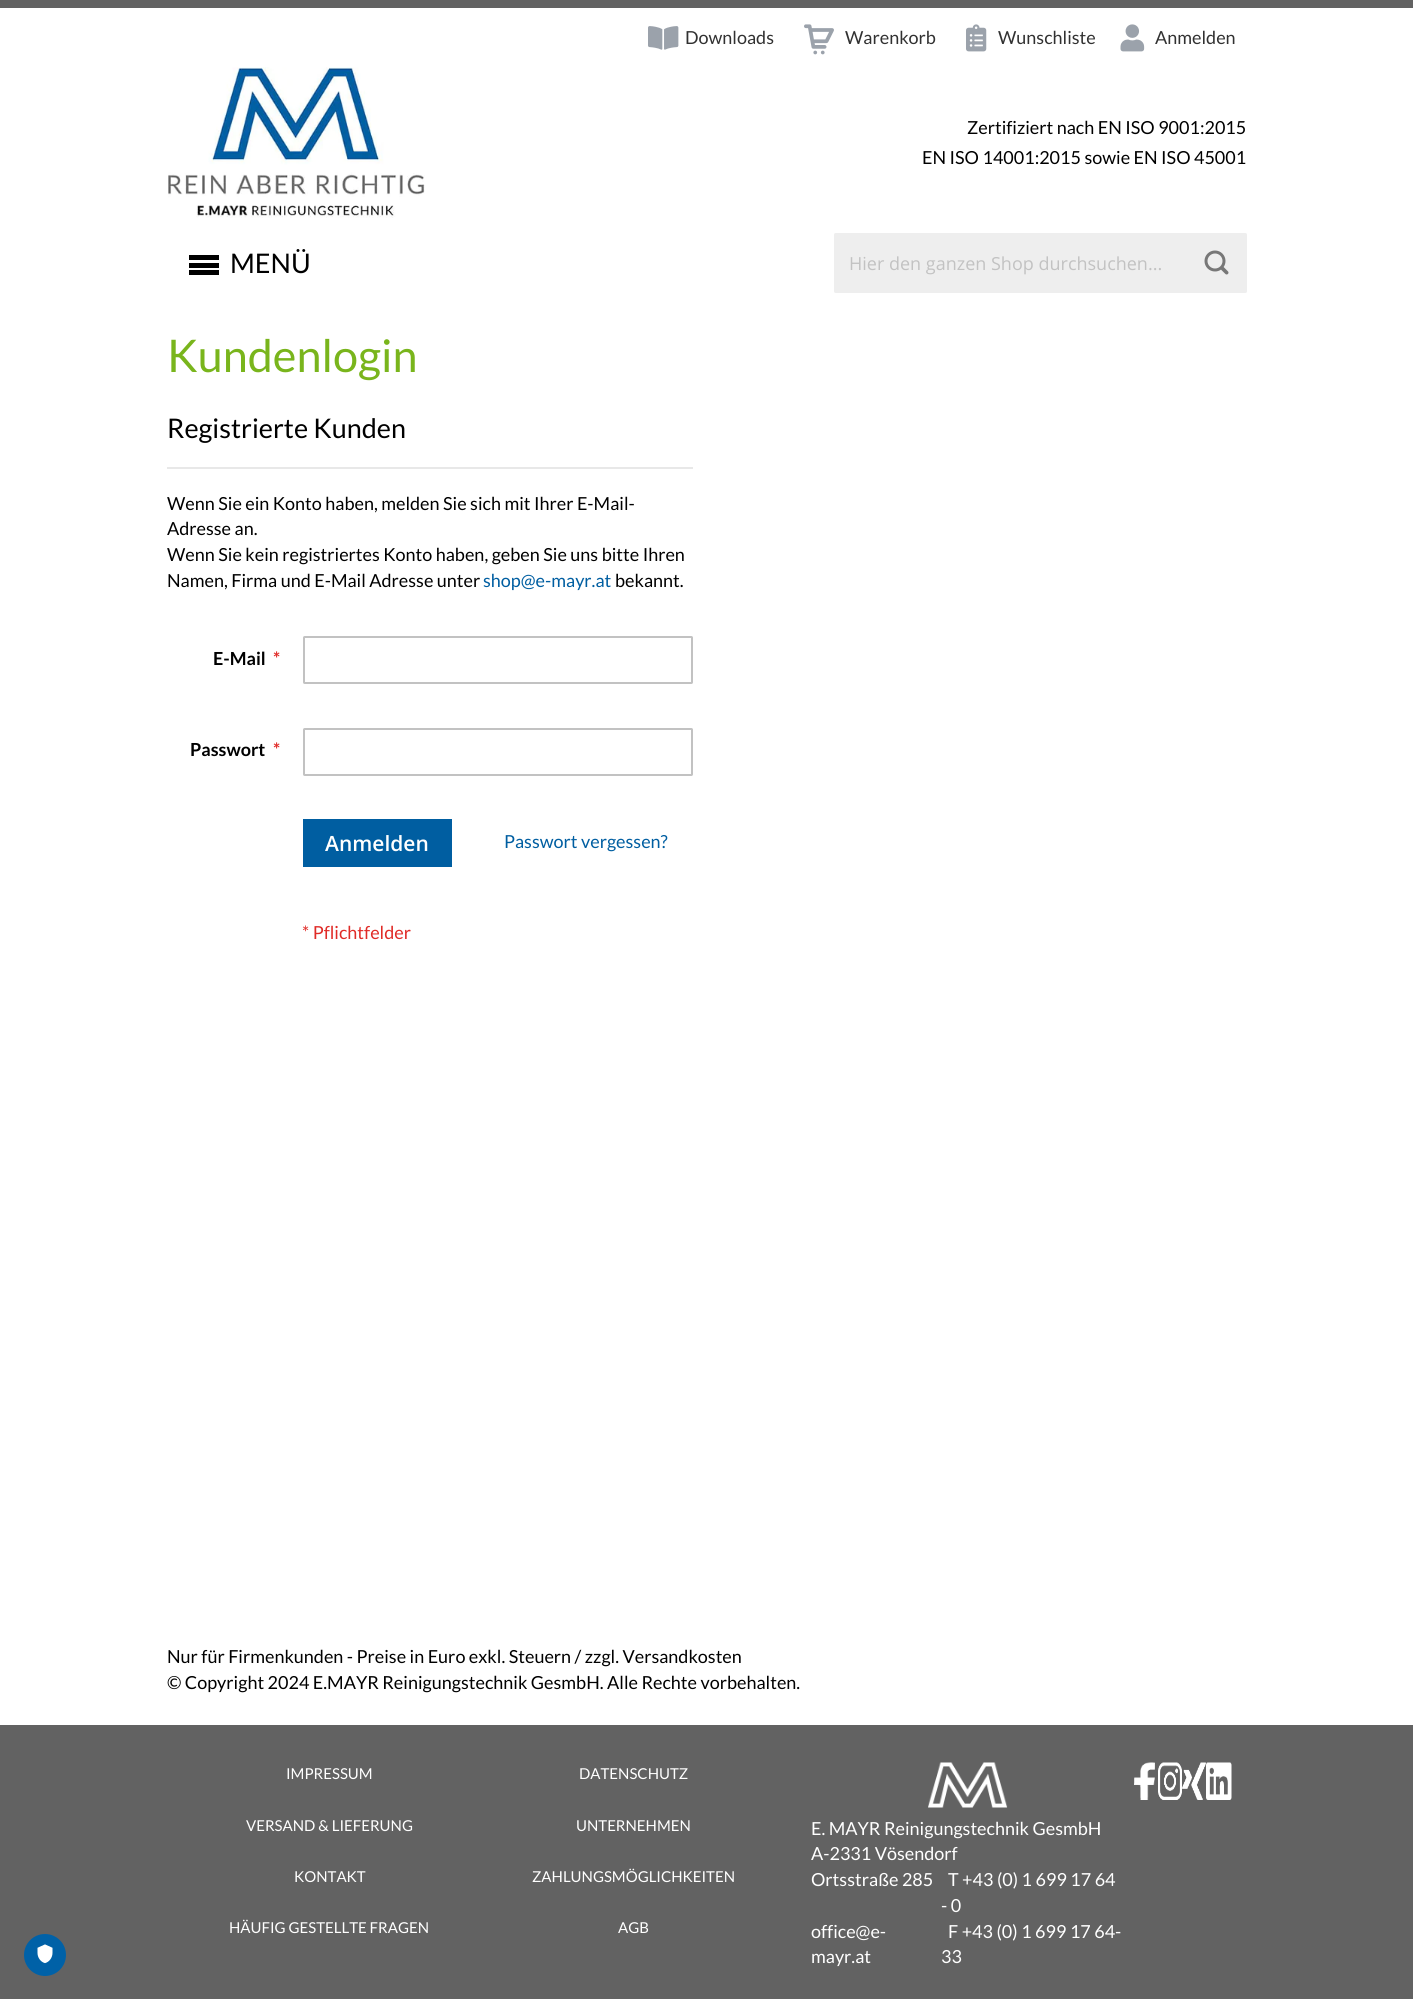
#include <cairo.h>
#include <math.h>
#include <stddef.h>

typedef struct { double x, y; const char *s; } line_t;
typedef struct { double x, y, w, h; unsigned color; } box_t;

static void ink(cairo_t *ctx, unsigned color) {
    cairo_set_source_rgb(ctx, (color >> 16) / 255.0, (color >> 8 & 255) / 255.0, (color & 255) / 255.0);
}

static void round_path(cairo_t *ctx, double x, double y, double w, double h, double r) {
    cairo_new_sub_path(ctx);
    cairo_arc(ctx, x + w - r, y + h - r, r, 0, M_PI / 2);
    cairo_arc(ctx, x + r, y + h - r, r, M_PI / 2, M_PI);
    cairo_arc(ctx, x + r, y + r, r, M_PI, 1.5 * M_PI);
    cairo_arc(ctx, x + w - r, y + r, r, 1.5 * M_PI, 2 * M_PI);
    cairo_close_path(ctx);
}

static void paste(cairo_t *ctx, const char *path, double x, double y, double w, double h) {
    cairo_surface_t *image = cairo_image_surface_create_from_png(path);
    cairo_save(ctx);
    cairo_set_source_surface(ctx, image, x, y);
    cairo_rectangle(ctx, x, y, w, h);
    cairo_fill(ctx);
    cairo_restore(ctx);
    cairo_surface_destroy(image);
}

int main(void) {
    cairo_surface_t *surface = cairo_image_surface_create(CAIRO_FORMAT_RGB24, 1413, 1999);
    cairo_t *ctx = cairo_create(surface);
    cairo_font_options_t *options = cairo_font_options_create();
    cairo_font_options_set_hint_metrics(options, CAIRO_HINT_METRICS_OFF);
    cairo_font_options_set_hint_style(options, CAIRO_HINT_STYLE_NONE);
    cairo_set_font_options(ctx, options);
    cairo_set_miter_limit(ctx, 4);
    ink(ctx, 0xFFFFFF);
    cairo_paint(ctx);
    ink(ctx, 0x626262);
    cairo_rectangle(ctx, 0, 1725, 1413, 274);
    cairo_fill(ctx);
    ink(ctx, 0x0061A7);
    cairo_arc(ctx, 45, 1955, 21, 0, 2 * M_PI);
    cairo_fill(ctx);
    paste(ctx, "media/1.png", 37, 1944, 16, 20);
    ink(ctx, 0x626262);
    cairo_rectangle(ctx, 0, 0, 1413, 8);
    cairo_fill(ctx);
    paste(ctx, "media/2.png", 648, 26, 31, 24);
    cairo_select_font_face(ctx, "Lato", CAIRO_FONT_SLANT_NORMAL, CAIRO_FONT_WEIGHT_NORMAL);
    cairo_set_font_size(ctx, 18);
    ink(ctx, 0x313131);
    cairo_move_to(ctx, 685, 44);
    cairo_show_text(ctx, "Downloads");
    paste(ctx, "media/3.png", 804, 24, 30, 31);
    cairo_move_to(ctx, 845, 44);
    cairo_show_text(ctx, "Warenkorb");
    paste(ctx, "media/4.png", 966, 24, 21, 28);
    cairo_move_to(ctx, 998, 44);
    cairo_show_text(ctx, "Wunschliste");
    paste(ctx, "media/5.png", 1120, 24, 25, 28);
    cairo_move_to(ctx, 1155, 44);
    cairo_show_text(ctx, "Anmelden");
    paste(ctx, "media/6.png", 168, 67, 257, 151);
    ink(ctx, 0x000000);
    cairo_move_to(ctx, 967, 134);
    cairo_show_text(ctx, "Zertifiziert nach EN ISO 9001:2015");
    cairo_move_to(ctx, 922, 164);
    cairo_show_text(ctx, "EN ISO 14001:2015 sowie EN ISO 45001");
    {
        static const box_t items[] = {
            {189, 255, 30, 5, 0x000000},
            {189, 263, 30, 5, 0x000000},
            {189, 270, 30, 5, 0x000000},
        };
        for (size_t i = 0; i < sizeof items / sizeof *items; i++) {
            ink(ctx, items[i].color);
            cairo_rectangle(ctx, items[i].x, items[i].y, items[i].w, items[i].h);
            cairo_fill(ctx);
        }
    }
    cairo_set_font_size(ctx, 27);
    cairo_move_to(ctx, 230, 273);
    cairo_show_text(ctx, "MENÜ");
    ink(ctx, 0xEEEEEE);
    round_path(ctx, 835, 234, 411, 58, 0.5);
    cairo_fill_preserve(ctx);
    cairo_stroke(ctx);
    cairo_select_font_face(ctx, "Open Sans", CAIRO_FONT_SLANT_NORMAL, CAIRO_FONT_WEIGHT_NORMAL);
    cairo_set_font_size(ctx, 18);
    ink(ctx, 0xC2C2C2);
    cairo_move_to(ctx, 849, 270);
    cairo_show_text(ctx, "Hier den ganzen Shop durchsuchen...");
    paste(ctx, "media/7.png", 1204, 250, 25, 25);
    cairo_select_font_face(ctx, "Lato", CAIRO_FONT_SLANT_NORMAL, CAIRO_FONT_WEIGHT_NORMAL);
    cairo_set_font_size(ctx, 45);
    ink(ctx, 0x79B51C);
    cairo_move_to(ctx, 167, 372);
    cairo_show_text(ctx, "Kundenlogin");
    ink(ctx, 0xE8E8E8);
    cairo_rectangle(ctx, 167, 467, 526, 2);
    cairo_fill(ctx);
    cairo_set_font_size(ctx, 27);
    ink(ctx, 0x000000);
    cairo_move_to(ctx, 167, 438);
    cairo_show_text(ctx, "Registrierte Kunden");
    cairo_set_font_size(ctx, 18);
    {
        static const line_t items[] = {
            {167, 510, "Wenn Sie ein Konto haben, melden Sie sich mit Ihrer E-Mail-"},
            {167, 535, "Adresse an."},
            {167, 561, "Wenn Sie kein registriertes Konto haben, geben Sie uns bitte Ihren"},
            {167, 587, "Namen, Firma und E-Mail Adresse unter"},
        };
        for (size_t i = 0; i < sizeof items / sizeof *items; i++) {
            cairo_move_to(ctx, items[i].x, items[i].y);
            cairo_show_text(ctx, items[i].s);
        }
    }
    ink(ctx, 0x005EA1);
    cairo_move_to(ctx, 483, 587);
    cairo_show_text(ctx, "shop@e-mayr.at");
    ink(ctx, 0x000000);
    cairo_move_to(ctx, 615, 587);
    cairo_show_text(ctx, "bekannt.");
    cairo_select_font_face(ctx, "Lato", CAIRO_FONT_SLANT_NORMAL, CAIRO_FONT_WEIGHT_BOLD);
    cairo_move_to(ctx, 213, 665);
    cairo_show_text(ctx, "E-Mail");
    ink(ctx, 0xE02B27);
    cairo_move_to(ctx, 273, 665);
    cairo_show_text(ctx, "*");
    round_path(ctx, 304, 637, 388, 46, 0.5);
    ink(ctx, 0xC2C2C2);
    cairo_stroke(ctx);
    ink(ctx, 0x000000);
    cairo_move_to(ctx, 190, 756);
    cairo_show_text(ctx, "Passwort");
    ink(ctx, 0xE02B27);
    cairo_move_to(ctx, 273, 756);
    cairo_show_text(ctx, "*");
    round_path(ctx, 304, 729, 388, 46, 0.5);
    ink(ctx, 0xC2C2C2);
    cairo_stroke(ctx);
    ink(ctx, 0x005EA1);
    cairo_rectangle(ctx, 303, 819, 149, 48);
    cairo_fill(ctx);
    cairo_select_font_face(ctx, "Open Sans SemiBold", CAIRO_FONT_SLANT_NORMAL, CAIRO_FONT_WEIGHT_NORMAL);
    cairo_set_font_size(ctx, 21);
    ink(ctx, 0xFFFFFF);
    cairo_move_to(ctx, 325, 851);
    cairo_show_text(ctx, "Anmelden");
    cairo_select_font_face(ctx, "Lato", CAIRO_FONT_SLANT_NORMAL, CAIRO_FONT_WEIGHT_NORMAL);
    cairo_set_font_size(ctx, 18);
    ink(ctx, 0x005EA1);
    cairo_move_to(ctx, 504, 848);
    cairo_show_text(ctx, "Passwort vergessen?");
    ink(ctx, 0xE02B27);
    cairo_move_to(ctx, 302, 939);
    cairo_show_text(ctx, "* Pflichtfelder");
    ink(ctx, 0x000000);
    cairo_move_to(ctx, 167, 1663);
    cairo_show_text(ctx, "Nur für Firmenkunden - Preise in Euro exkl. Steuern / zzgl. Versandkosten");
    cairo_move_to(ctx, 167, 1689);
    cairo_show_text(ctx, "© Copyright 2024 E.MAYR Reinigungstechnik GesmbH. Alle Rechte vorbehalten.");
    cairo_set_font_size(ctx, 15);
    ink(ctx, 0xFFFFFF);
    {
        static const line_t items[] = {
            {286, 1779, "IMPRESSUM"},
            {579, 1779, "DATENSCHUTZ"},
            {246, 1831, "VERSAND & LIEFERUNG"},
            {576, 1831, "UNTERNEHMEN"},
            {294, 1882, "KONTAKT"},
            {532, 1882, "ZAHLUNGSMÖGLICHKEITEN"},
            {229, 1933, "HÄUFIG GESTELLTE FRAGEN"},
            {618, 1933, "AGB"},
        };
        for (size_t i = 0; i < sizeof items / sizeof *items; i++) {
            cairo_move_to(ctx, items[i].x, items[i].y);
            cairo_show_text(ctx, items[i].s);
        }
    }
    paste(ctx, "media/8.png", 1134, 1762, 21, 38);
    paste(ctx, "media/9.png", 1158, 1762, 24, 38);
    paste(ctx, "media/10.png", 1182, 1762, 24, 38);
    paste(ctx, "media/11.png", 1206, 1762, 26, 38);
    paste(ctx, "media/12.png", 928, 1762, 80, 46);
    cairo_set_font_size(ctx, 18);
    {
        static const line_t items[] = {
            {811, 1835, "E. MAYR Reinigungstechnik GesmbH"},
            {811, 1860, "A-2331 Vösendorf"},
            {811, 1886, "Ortsstraße 285"},
            {948, 1886, "T +43 (0) 1 699 17 64"},
            {941, 1912, "- 0"},
            {811, 1938, "office@e-"},
            {811, 1963, "mayr.at"},
            {948, 1938, "F +43 (0) 1 699 17 64-"},
            {941, 1963, "33"},
        };
        for (size_t i = 0; i < sizeof items / sizeof *items; i++) {
            cairo_move_to(ctx, items[i].x, items[i].y);
            cairo_show_text(ctx, items[i].s);
        }
    }
    cairo_surface_write_to_png(surface, "image.png");
    cairo_font_options_destroy(options);
    cairo_destroy(ctx);
    cairo_surface_destroy(surface);
    return 0;
}
